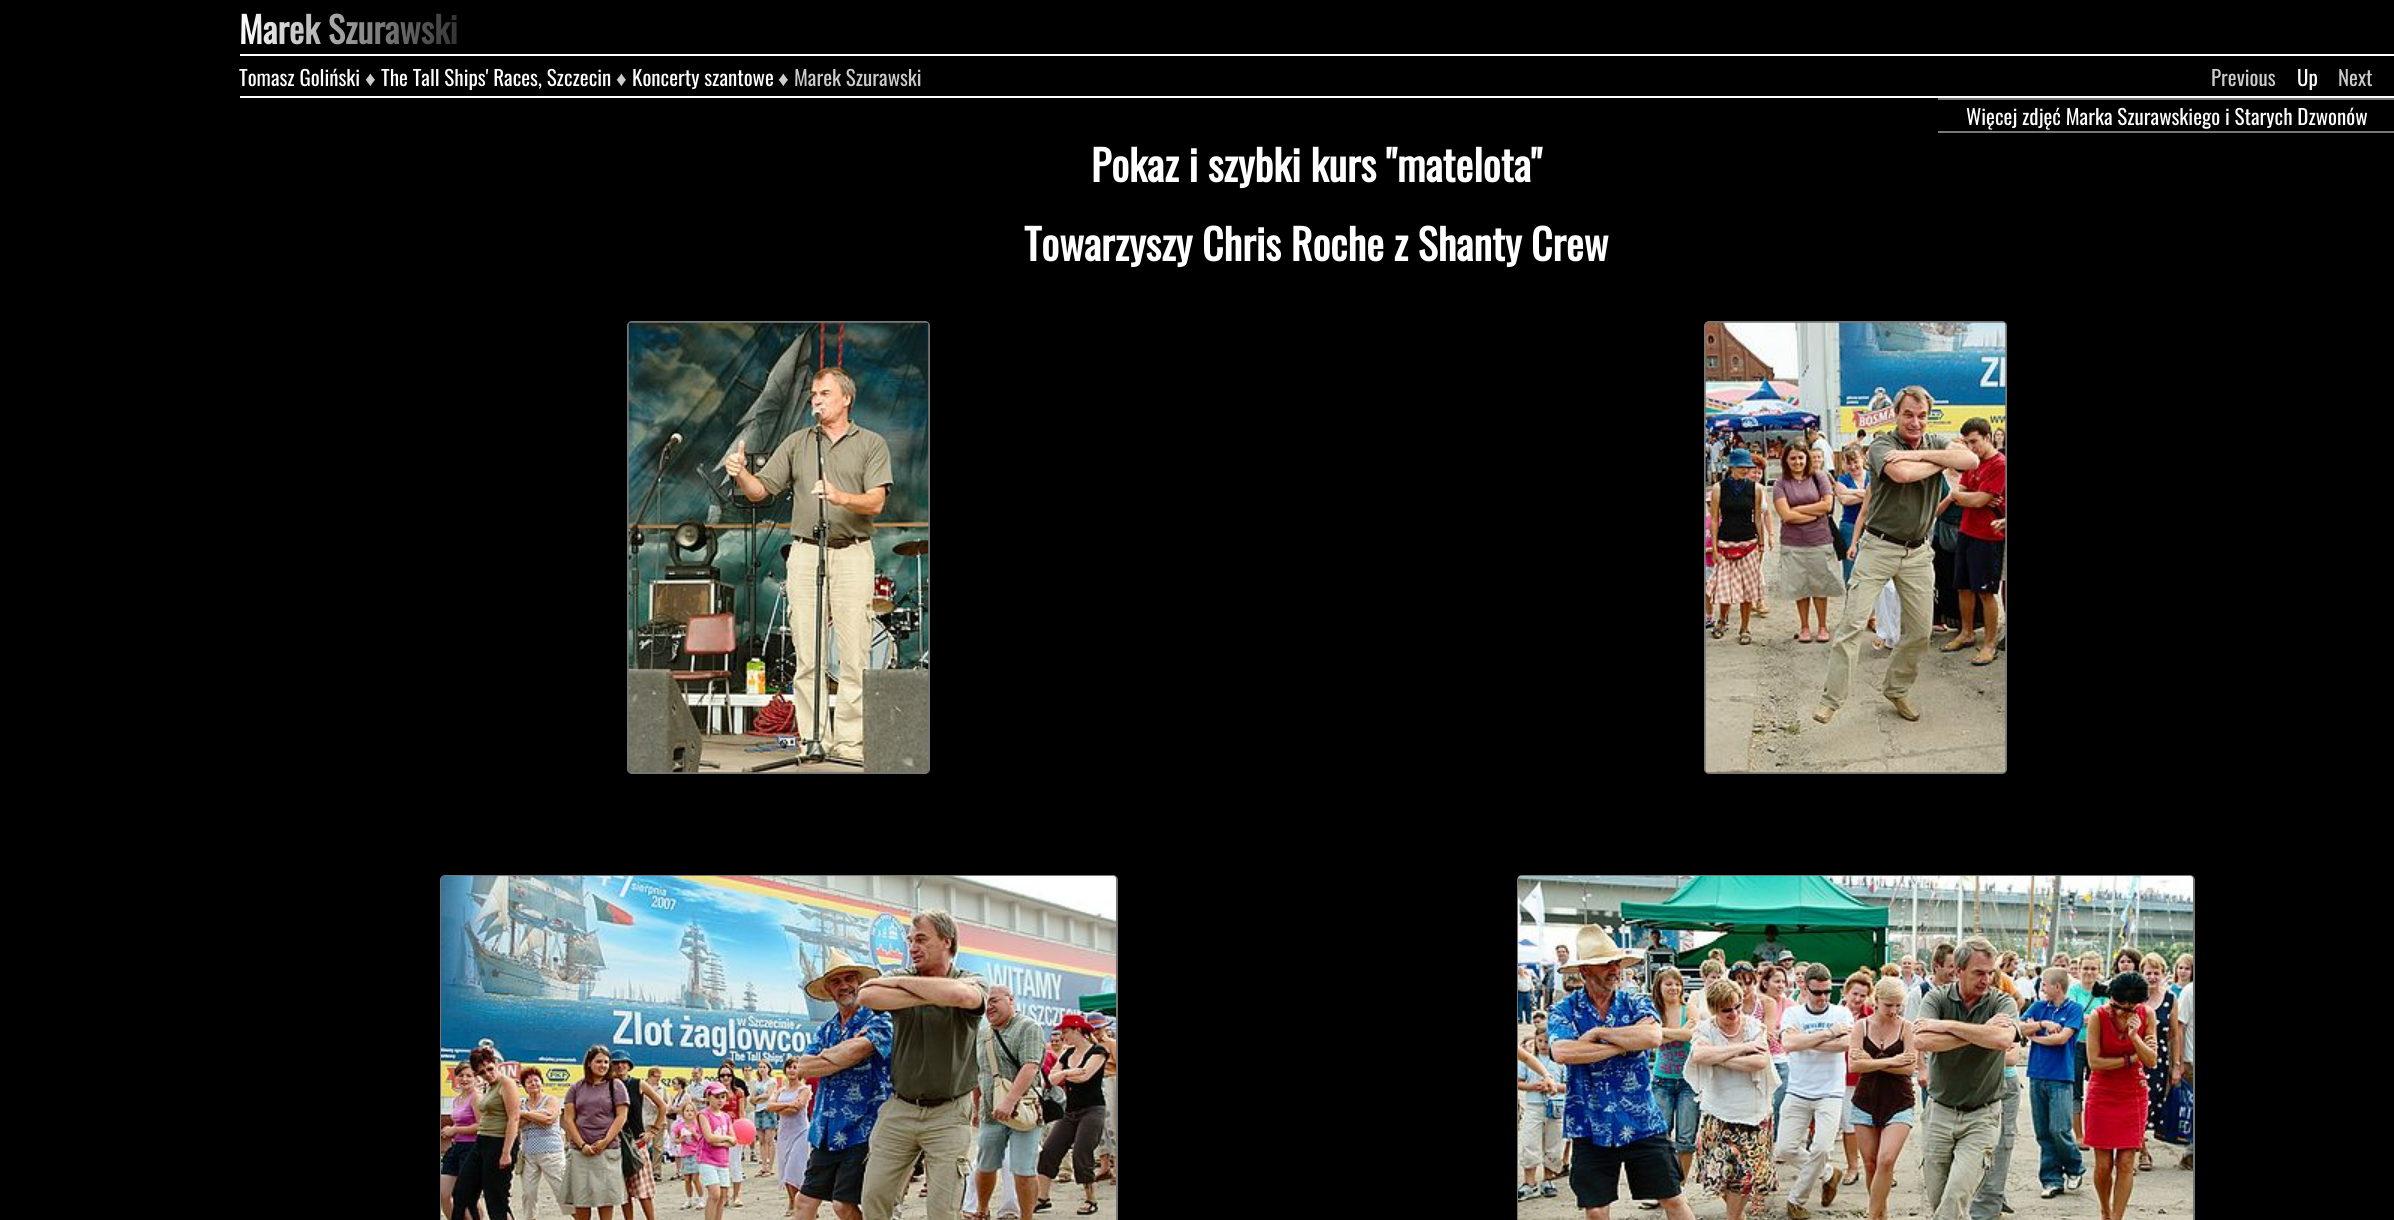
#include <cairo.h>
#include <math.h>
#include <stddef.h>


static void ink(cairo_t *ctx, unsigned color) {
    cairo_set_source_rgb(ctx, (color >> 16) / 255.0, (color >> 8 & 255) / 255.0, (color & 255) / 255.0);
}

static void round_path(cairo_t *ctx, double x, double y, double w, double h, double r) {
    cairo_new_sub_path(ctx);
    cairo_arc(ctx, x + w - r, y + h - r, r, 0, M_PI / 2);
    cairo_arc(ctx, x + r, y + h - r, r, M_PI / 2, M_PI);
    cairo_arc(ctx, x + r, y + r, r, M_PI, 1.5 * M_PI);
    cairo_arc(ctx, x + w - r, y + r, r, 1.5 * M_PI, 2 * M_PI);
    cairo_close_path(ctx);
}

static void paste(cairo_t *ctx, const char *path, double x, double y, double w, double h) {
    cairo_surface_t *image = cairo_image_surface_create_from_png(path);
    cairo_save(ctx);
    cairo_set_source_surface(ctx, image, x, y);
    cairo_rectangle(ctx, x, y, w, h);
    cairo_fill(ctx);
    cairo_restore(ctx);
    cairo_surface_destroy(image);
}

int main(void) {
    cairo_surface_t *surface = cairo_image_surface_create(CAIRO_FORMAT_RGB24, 2394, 1220);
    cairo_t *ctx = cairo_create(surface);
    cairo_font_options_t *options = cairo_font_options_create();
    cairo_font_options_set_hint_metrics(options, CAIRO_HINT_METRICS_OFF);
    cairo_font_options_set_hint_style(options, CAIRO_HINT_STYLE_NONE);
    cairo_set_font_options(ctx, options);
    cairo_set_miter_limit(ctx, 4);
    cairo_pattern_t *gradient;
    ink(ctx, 0x000000);
    cairo_paint(ctx);
    cairo_select_font_face(ctx, "Oswald", CAIRO_FONT_SLANT_NORMAL, CAIRO_FONT_WEIGHT_BOLD);
    cairo_set_font_size(ctx, 36);
    gradient = cairo_pattern_create_linear(239, 27, 458, 27);
    cairo_pattern_add_color_stop_rgba(gradient, 0, 1, 1, 1, 1);
    cairo_pattern_add_color_stop_rgba(gradient, 1, 0.2, 0.2, 0.2, 1);
    cairo_set_source(ctx, gradient);
    cairo_pattern_destroy(gradient);
    cairo_move_to(ctx, 239, 44);
    cairo_show_text(ctx, "Marek Szurawski");
    ink(ctx, 0xFFFFFF);
    cairo_rectangle(ctx, 240, 54, 2154, 2);
    cairo_fill(ctx);
    cairo_rectangle(ctx, 240, 96, 2154, 2);
    cairo_fill(ctx);
    cairo_select_font_face(ctx, "Oswald", CAIRO_FONT_SLANT_NORMAL, CAIRO_FONT_WEIGHT_NORMAL);
    cairo_set_font_size(ctx, 21);
    cairo_move_to(ctx, 239, 86);
    cairo_show_text(ctx, "Tomasz Goliński");
    cairo_select_font_face(ctx, "Liberation Sans", CAIRO_FONT_SLANT_NORMAL, CAIRO_FONT_WEIGHT_NORMAL);
    ink(ctx, 0xCCCCCC);
    cairo_move_to(ctx, 365, 86);
    cairo_show_text(ctx, "♦");
    cairo_select_font_face(ctx, "Oswald", CAIRO_FONT_SLANT_NORMAL, CAIRO_FONT_WEIGHT_NORMAL);
    ink(ctx, 0xFFFFFF);
    cairo_move_to(ctx, 381, 86);
    cairo_show_text(ctx, "The Tall Ships' Races, Szczecin");
    cairo_select_font_face(ctx, "Liberation Sans", CAIRO_FONT_SLANT_NORMAL, CAIRO_FONT_WEIGHT_NORMAL);
    ink(ctx, 0xCCCCCC);
    cairo_move_to(ctx, 616, 86);
    cairo_show_text(ctx, "♦");
    cairo_select_font_face(ctx, "Oswald", CAIRO_FONT_SLANT_NORMAL, CAIRO_FONT_WEIGHT_NORMAL);
    ink(ctx, 0xFFFFFF);
    cairo_move_to(ctx, 632, 86);
    cairo_show_text(ctx, "Koncerty szantowe");
    cairo_select_font_face(ctx, "Liberation Sans", CAIRO_FONT_SLANT_NORMAL, CAIRO_FONT_WEIGHT_NORMAL);
    ink(ctx, 0xCCCCCC);
    cairo_move_to(ctx, 778, 86);
    cairo_show_text(ctx, "♦");
    cairo_select_font_face(ctx, "Oswald", CAIRO_FONT_SLANT_NORMAL, CAIRO_FONT_WEIGHT_NORMAL);
    cairo_move_to(ctx, 794, 86);
    cairo_show_text(ctx, "Marek Szurawski");
    cairo_move_to(ctx, 2211, 86);
    cairo_show_text(ctx, "Previous");
    ink(ctx, 0xFFFFFF);
    cairo_move_to(ctx, 2297, 86);
    cairo_show_text(ctx, "Up");
    ink(ctx, 0xCCCCCC);
    cairo_move_to(ctx, 2338, 86);
    cairo_show_text(ctx, "Next");
    ink(ctx, 0x777777);
    cairo_rectangle(ctx, 1938, 98, 456, 2);
    cairo_fill(ctx);
    cairo_rectangle(ctx, 1938, 131, 456, 2);
    cairo_fill(ctx);
    ink(ctx, 0xFFFFFF);
    cairo_move_to(ctx, 1966, 125);
    cairo_show_text(ctx, "Więcej zdjęć Marka Szurawskiego i Starych Dzwonów");
    cairo_select_font_face(ctx, "Oswald", CAIRO_FONT_SLANT_NORMAL, CAIRO_FONT_WEIGHT_BOLD);
    cairo_set_font_size(ctx, 42);
    cairo_move_to(ctx, 1091, 182);
    cairo_show_text(ctx, "Pokaz i szybki kurs \"matelota\"");
    cairo_move_to(ctx, 1024, 261);
    cairo_show_text(ctx, "Towarzyszy Chris Roche z Shanty Crew");
    round_path(ctx, 628, 322, 301, 451, 4);
    ink(ctx, 0x777777);
    cairo_stroke(ctx);
    paste(ctx, "media/1.png", 628, 322, 301, 451);
    round_path(ctx, 1705, 322, 301, 451, 4);
    cairo_stroke(ctx);
    paste(ctx, "media/2.png", 1705, 322, 301, 451);
    round_path(ctx, 441, 876, 676, 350, 4);
    cairo_stroke(ctx);
    paste(ctx, "media/3.png", 441, 876, 675, 344);
    round_path(ctx, 1518, 876, 676, 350, 4);
    cairo_stroke(ctx);
    paste(ctx, "media/4.png", 1518, 876, 675, 344);
    cairo_surface_write_to_png(surface, "image.png");
    cairo_font_options_destroy(options);
    cairo_destroy(ctx);
    cairo_surface_destroy(surface);
    return 0;
}
